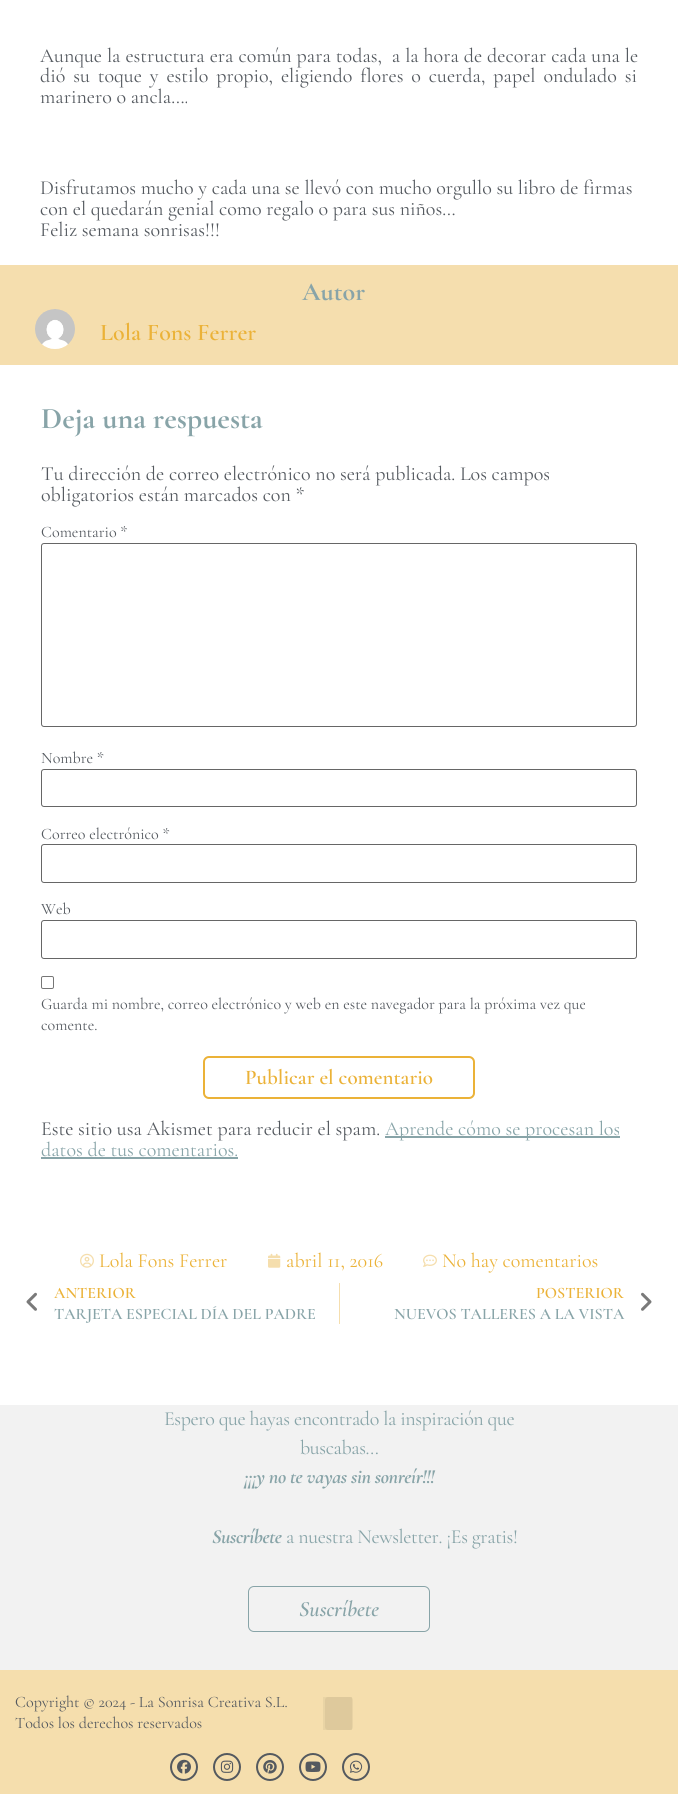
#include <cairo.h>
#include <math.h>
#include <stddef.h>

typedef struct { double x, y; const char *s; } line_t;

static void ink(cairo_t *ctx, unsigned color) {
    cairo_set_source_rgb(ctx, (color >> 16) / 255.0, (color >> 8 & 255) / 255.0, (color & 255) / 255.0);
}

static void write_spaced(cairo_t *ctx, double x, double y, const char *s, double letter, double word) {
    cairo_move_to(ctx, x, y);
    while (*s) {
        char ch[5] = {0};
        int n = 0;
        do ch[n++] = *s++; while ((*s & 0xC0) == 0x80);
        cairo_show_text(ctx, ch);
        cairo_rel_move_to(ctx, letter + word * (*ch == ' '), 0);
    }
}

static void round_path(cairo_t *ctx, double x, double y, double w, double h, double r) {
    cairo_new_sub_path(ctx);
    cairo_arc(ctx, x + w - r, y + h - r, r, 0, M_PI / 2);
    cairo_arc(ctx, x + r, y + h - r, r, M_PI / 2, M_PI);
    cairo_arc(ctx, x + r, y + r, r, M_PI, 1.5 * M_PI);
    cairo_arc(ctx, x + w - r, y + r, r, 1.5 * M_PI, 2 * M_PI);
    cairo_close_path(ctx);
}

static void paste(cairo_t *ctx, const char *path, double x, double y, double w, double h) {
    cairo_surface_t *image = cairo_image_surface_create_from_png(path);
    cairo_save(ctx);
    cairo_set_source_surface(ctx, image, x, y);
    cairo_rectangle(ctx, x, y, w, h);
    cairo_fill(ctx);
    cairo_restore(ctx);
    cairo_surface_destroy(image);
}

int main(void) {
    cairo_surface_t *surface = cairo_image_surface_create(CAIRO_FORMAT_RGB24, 678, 1794);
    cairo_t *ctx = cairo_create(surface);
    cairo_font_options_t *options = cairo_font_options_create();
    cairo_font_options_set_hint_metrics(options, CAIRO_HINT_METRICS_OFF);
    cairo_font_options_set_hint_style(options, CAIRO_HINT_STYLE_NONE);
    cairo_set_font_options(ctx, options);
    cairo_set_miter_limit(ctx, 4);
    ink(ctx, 0xFFFFFF);
    cairo_paint(ctx);
    cairo_select_font_face(ctx, "Cormorant Garamond", CAIRO_FONT_SLANT_NORMAL, CAIRO_FONT_WEIGHT_NORMAL);
    cairo_set_font_size(ctx, 20);
    ink(ctx, 0x54595F);
    write_spaced(ctx, 40, 62, "Aunque la estructura era común para todas,  a la hora de decorar cada una le", 0, 0.25);
    write_spaced(ctx, 40, 82, "dió su toque y estilo propio, eligiendo flores o cuerda, papel ondulado si", 0, 3.25);
    {
        static const line_t items[] = {
            {40, 103, "marinero o ancla…."},
            {40, 194, "Disfrutamos mucho y cada una se llevó con mucho orgullo su libro de firmas"},
            {40, 215, "con el quedarán genial como regalo o para sus niños…"},
            {40, 236, "Feliz semana sonrisas!!!"},
        };
        for (size_t i = 0; i < sizeof items / sizeof *items; i++) {
            cairo_move_to(ctx, items[i].x, items[i].y);
            cairo_show_text(ctx, items[i].s);
        }
    }
    ink(ctx, 0xF5DEAE);
    cairo_rectangle(ctx, 0, 265, 678, 100);
    cairo_fill(ctx);
    cairo_select_font_face(ctx, "Cormorant Garamond", CAIRO_FONT_SLANT_NORMAL, CAIRO_FONT_WEIGHT_BOLD);
    cairo_set_font_size(ctx, 26);
    ink(ctx, 0x88A4A8);
    cairo_move_to(ctx, 302, 300);
    cairo_show_text(ctx, "Autor");
    paste(ctx, "media/1.png", 35, 309, 40, 40);
    cairo_select_font_face(ctx, "Cormorant Garamond SemiBold", CAIRO_FONT_SLANT_NORMAL, CAIRO_FONT_WEIGHT_NORMAL);
    cairo_set_font_size(ctx, 24);
    ink(ctx, 0xEBB238);
    cairo_move_to(ctx, 100, 340);
    cairo_show_text(ctx, "Lola Fons Ferrer");
    cairo_select_font_face(ctx, "Cormorant Garamond", CAIRO_FONT_SLANT_NORMAL, CAIRO_FONT_WEIGHT_BOLD);
    cairo_set_font_size(ctx, 30);
    ink(ctx, 0x88A4A8);
    cairo_move_to(ctx, 41, 428);
    cairo_show_text(ctx, "Deja una respuesta");
    cairo_select_font_face(ctx, "Cormorant Garamond", CAIRO_FONT_SLANT_NORMAL, CAIRO_FONT_WEIGHT_NORMAL);
    cairo_set_font_size(ctx, 20);
    ink(ctx, 0x54595F);
    cairo_move_to(ctx, 41, 480);
    cairo_show_text(ctx, "Tu dirección de correo electrónico no será publicada. Los campos");
    cairo_move_to(ctx, 41, 501);
    cairo_show_text(ctx, "obligatorios están marcados con *");
    cairo_set_font_size(ctx, 16);
    cairo_move_to(ctx, 41, 537);
    cairo_show_text(ctx, "Comentario *");
    round_path(ctx, 41.5, 543.5, 595, 183, 2.5);
    ink(ctx, 0x666666);
    cairo_set_line_width(ctx, 1);
    cairo_stroke(ctx);
    ink(ctx, 0x54595F);
    cairo_move_to(ctx, 41, 763);
    cairo_show_text(ctx, "Nombre *");
    round_path(ctx, 41.5, 769.5, 595, 37, 2.5);
    ink(ctx, 0x666666);
    cairo_stroke(ctx);
    ink(ctx, 0x54595F);
    cairo_move_to(ctx, 41, 839);
    cairo_show_text(ctx, "Correo electrónico *");
    round_path(ctx, 41.5, 844.5, 595, 38, 2.5);
    ink(ctx, 0x666666);
    cairo_stroke(ctx);
    ink(ctx, 0x54595F);
    cairo_move_to(ctx, 41, 914);
    cairo_show_text(ctx, "Web");
    round_path(ctx, 41.5, 920.5, 595, 38, 2.5);
    ink(ctx, 0x666666);
    cairo_stroke(ctx);
    round_path(ctx, 41.5, 976.5, 12, 12, 1.5);
    ink(ctx, 0x767676);
    cairo_stroke(ctx);
    ink(ctx, 0x54595F);
    cairo_move_to(ctx, 41, 1009);
    cairo_show_text(ctx, "Guarda mi nombre, correo electrónico y web en este navegador para la próxima vez que");
    cairo_move_to(ctx, 41, 1030);
    cairo_show_text(ctx, "comente.");
    round_path(ctx, 204, 1057, 270, 41, 5);
    ink(ctx, 0xEBB238);
    cairo_set_line_width(ctx, 2);
    cairo_stroke(ctx);
    cairo_select_font_face(ctx, "Cormorant Garamond SemiBold", CAIRO_FONT_SLANT_NORMAL, CAIRO_FONT_WEIGHT_NORMAL);
    cairo_set_font_size(ctx, 21);
    cairo_move_to(ctx, 245, 1084);
    cairo_show_text(ctx, "Publicar el comentario");
    cairo_select_font_face(ctx, "Cormorant Garamond", CAIRO_FONT_SLANT_NORMAL, CAIRO_FONT_WEIGHT_NORMAL);
    cairo_set_font_size(ctx, 20);
    ink(ctx, 0x54595F);
    cairo_move_to(ctx, 41, 1135);
    cairo_show_text(ctx, "Este sitio usa Akismet para reducir el spam.");
    ink(ctx, 0x88A4A8);
    cairo_rectangle(ctx, 385, 1136, 235, 2);
    cairo_fill(ctx);
    cairo_move_to(ctx, 385, 1135);
    cairo_show_text(ctx, "Aprende cómo se procesan los");
    cairo_move_to(ctx, 41, 1156);
    cairo_show_text(ctx, "datos de tus comentarios.");
    cairo_rectangle(ctx, 41, 1157, 197, 2);
    cairo_fill(ctx);
    paste(ctx, "media/2.png", 80, 1253, 14, 15);
    ink(ctx, 0xEBB238);
    cairo_move_to(ctx, 99, 1267);
    cairo_show_text(ctx, "Lola Fons Ferrer");
    paste(ctx, "media/3.png", 268, 1253, 13, 15);
    cairo_move_to(ctx, 286, 1267);
    cairo_show_text(ctx, "abril 11, 2016");
    paste(ctx, "media/4.png", 423, 1254, 14, 13);
    cairo_move_to(ctx, 442, 1267);
    cairo_show_text(ctx, "No hay comentarios");
    paste(ctx, "media/5.png", 26, 1292, 11, 19);
    cairo_select_font_face(ctx, "Cormorant Garamond SemiBold", CAIRO_FONT_SLANT_NORMAL, CAIRO_FONT_WEIGHT_NORMAL);
    cairo_set_font_size(ctx, 16);
    cairo_move_to(ctx, 54, 1298);
    cairo_show_text(ctx, "ANTERIOR");
    ink(ctx, 0x88A4A8);
    cairo_move_to(ctx, 54, 1319);
    cairo_show_text(ctx, "TARJETA ESPECIAL DÍA DEL PADRE");
    ink(ctx, 0xF5DEAE);
    cairo_rectangle(ctx, 339, 1283, 1, 41);
    cairo_fill(ctx);
    ink(ctx, 0xEBB238);
    cairo_move_to(ctx, 536, 1298);
    cairo_show_text(ctx, "POSTERIOR");
    ink(ctx, 0x88A4A8);
    cairo_move_to(ctx, 394, 1319);
    cairo_show_text(ctx, "NUEVOS TALLERES A LA VISTA");
    paste(ctx, "media/6.png", 641, 1292, 11, 19);
    ink(ctx, 0xF2F2F2);
    cairo_rectangle(ctx, 0, 1405, 678, 265);
    cairo_fill(ctx);
    cairo_select_font_face(ctx, "Cormorant Garamond", CAIRO_FONT_SLANT_NORMAL, CAIRO_FONT_WEIGHT_NORMAL);
    cairo_set_font_size(ctx, 20);
    ink(ctx, 0x88A4A8);
    write_spaced(ctx, 164, 1425, "Espero que hayas encontrado la inspiración que", -0.4, 0);
    write_spaced(ctx, 300, 1454, "buscabas…", -0.4, 0);
    cairo_select_font_face(ctx, "Cormorant Garamond", CAIRO_FONT_SLANT_ITALIC, CAIRO_FONT_WEIGHT_BOLD);
    write_spaced(ctx, 244, 1483, "¡¡¡y no te vayas sin sonreír!!!", -0.4, 0);
    write_spaced(ctx, 212, 1543, "Suscríbete", -0.4, 0);
    cairo_select_font_face(ctx, "Cormorant Garamond", CAIRO_FONT_SLANT_NORMAL, CAIRO_FONT_WEIGHT_NORMAL);
    write_spaced(ctx, 286, 1543, "a nuestra Newsletter. ¡Es gratis!", -0.4, 0);
    round_path(ctx, 248.5, 1586.5, 181, 45, 5.5);
    cairo_set_line_width(ctx, 1);
    cairo_stroke(ctx);
    cairo_select_font_face(ctx, "Cormorant Garamond SemiBold", CAIRO_FONT_SLANT_ITALIC, CAIRO_FONT_WEIGHT_NORMAL);
    cairo_set_font_size(ctx, 22);
    cairo_move_to(ctx, 299, 1616);
    cairo_show_text(ctx, "Suscríbete");
    ink(ctx, 0xF5DEAD);
    cairo_rectangle(ctx, 0, 1670, 678, 124);
    cairo_fill(ctx);
    cairo_select_font_face(ctx, "Cormorant Garamond", CAIRO_FONT_SLANT_NORMAL, CAIRO_FONT_WEIGHT_NORMAL);
    cairo_set_font_size(ctx, 16);
    ink(ctx, 0x54595F);
    cairo_move_to(ctx, 15, 1707);
    cairo_show_text(ctx, "Copyright © 2024 - La Sonrisa Creativa S.L.");
    cairo_move_to(ctx, 15, 1728);
    cairo_show_text(ctx, "Todos los derechos reservados");
    ink(ctx, 0xE9D3A4);
    round_path(ctx, 325, 1697, 28, 33, 3);
    cairo_fill(ctx);
    cairo_set_source_rgba(ctx, 0, 0, 0, 0.05);
    cairo_rectangle(ctx, 323, 1697, 29, 33);
    cairo_fill(ctx);
    cairo_arc(ctx, 184, 1767, 13, 0, 2 * M_PI);
    ink(ctx, 0x54595F);
    cairo_set_line_width(ctx, 2);
    cairo_stroke(ctx);
    paste(ctx, "media/7.png", 177, 1759, 14, 15);
    cairo_arc(ctx, 227, 1767, 13, 0, 2 * M_PI);
    cairo_stroke(ctx);
    paste(ctx, "media/8.png", 220, 1760, 14, 13);
    cairo_arc(ctx, 270, 1767, 13, 0, 2 * M_PI);
    cairo_stroke(ctx);
    paste(ctx, "media/9.png", 263, 1760, 14, 14);
    cairo_arc(ctx, 313, 1767, 13, 0, 2 * M_PI);
    cairo_stroke(ctx);
    paste(ctx, "media/10.png", 305, 1761, 16, 11);
    cairo_arc(ctx, 356, 1767, 13, 0, 2 * M_PI);
    cairo_stroke(ctx);
    paste(ctx, "media/11.png", 349, 1760, 14, 13);
    cairo_surface_write_to_png(surface, "image.png");
    cairo_font_options_destroy(options);
    cairo_destroy(ctx);
    cairo_surface_destroy(surface);
    return 0;
}
